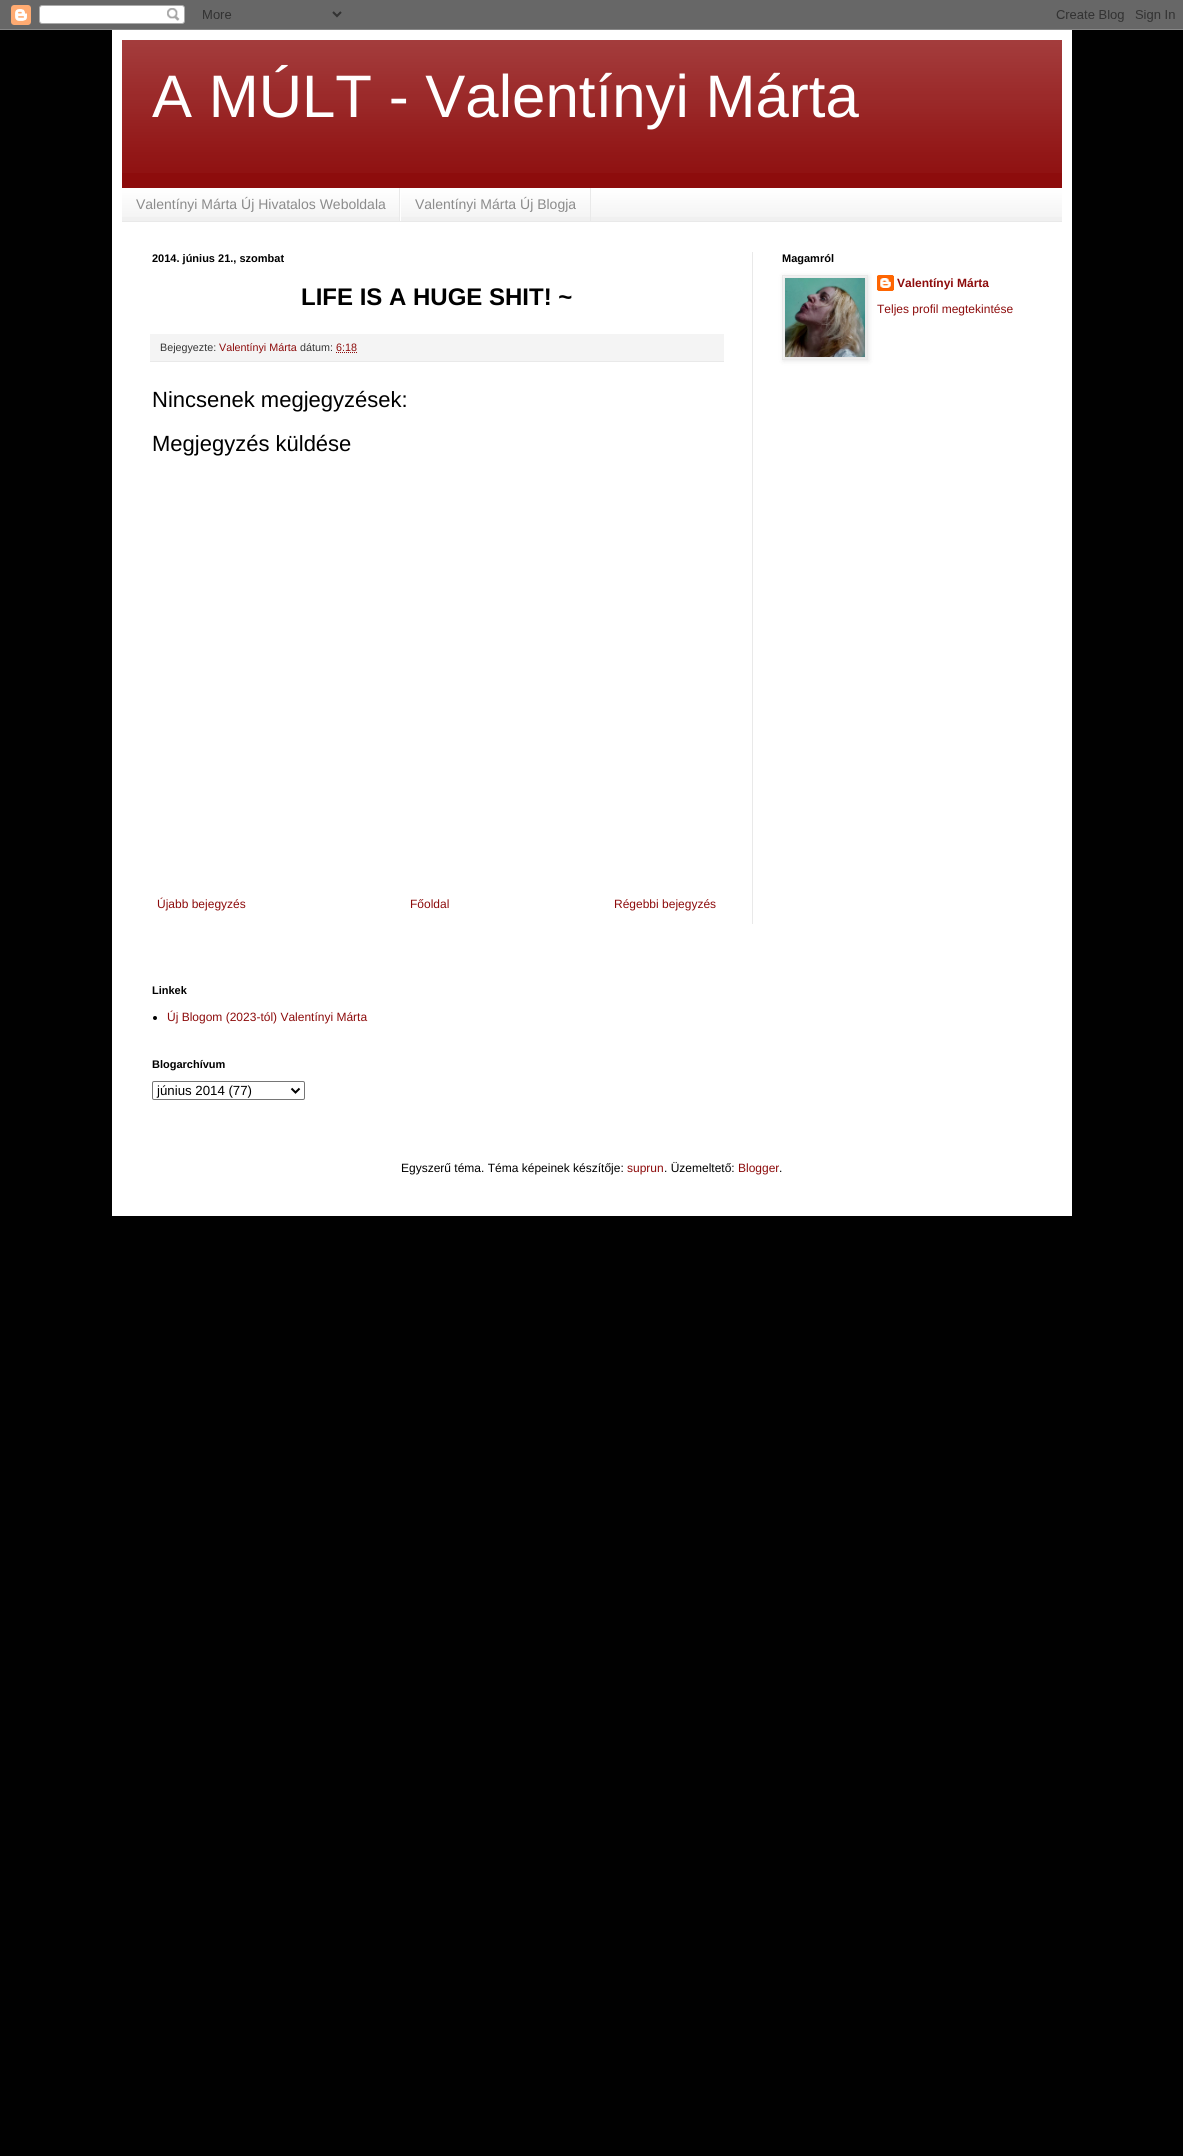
#include <cairo.h>
#include <math.h>
#include <stddef.h>

typedef struct { double x, y; const char *s; } line_t;

static void ink(cairo_t *ctx, unsigned color) {
    cairo_set_source_rgb(ctx, (color >> 16) / 255.0, (color >> 8 & 255) / 255.0, (color & 255) / 255.0);
}

static void round_path(cairo_t *ctx, double x, double y, double w, double h, double r) {
    cairo_new_sub_path(ctx);
    cairo_arc(ctx, x + w - r, y + h - r, r, 0, M_PI / 2);
    cairo_arc(ctx, x + r, y + h - r, r, M_PI / 2, M_PI);
    cairo_arc(ctx, x + r, y + r, r, M_PI, 1.5 * M_PI);
    cairo_arc(ctx, x + w - r, y + r, r, 1.5 * M_PI, 2 * M_PI);
    cairo_close_path(ctx);
}

static void blur_box(cairo_t *ctx, double x, double y, double w, double h, double r, double blur, double alpha) {
    cairo_push_group_with_content(ctx, CAIRO_CONTENT_ALPHA);
    cairo_set_operator(ctx, CAIRO_OPERATOR_SOURCE);
    for (int i = 15; i >= -15 && fmin(w, h) + blur * i / 3 > 0; i -= 2) {
        double e = blur * i / 6;
        cairo_set_source_rgba(ctx, 0, 0, 0, alpha * erfc((i - 1) / 8.5) / 2);
        round_path(ctx, x - e, y - e, w + 2 * e, h + 2 * e, fmax(0, fmin(r + e + blur * .6, fmin(w, h) / 2 + e)));
        cairo_fill(ctx);
    }
    cairo_pattern_t *soft = cairo_pop_group(ctx);
    cairo_mask(ctx, soft);
    cairo_pattern_destroy(soft);
}

static void paste(cairo_t *ctx, const char *path, double x, double y, double w, double h) {
    cairo_surface_t *image = cairo_image_surface_create_from_png(path);
    cairo_save(ctx);
    cairo_set_source_surface(ctx, image, x, y);
    cairo_rectangle(ctx, x, y, w, h);
    cairo_fill(ctx);
    cairo_restore(ctx);
    cairo_surface_destroy(image);
}

int main(void) {
    cairo_surface_t *surface = cairo_image_surface_create(CAIRO_FORMAT_RGB24, 1183, 2156);
    cairo_t *ctx = cairo_create(surface);
    cairo_font_options_t *options = cairo_font_options_create();
    cairo_font_options_set_hint_metrics(options, CAIRO_HINT_METRICS_OFF);
    cairo_font_options_set_hint_style(options, CAIRO_HINT_STYLE_NONE);
    cairo_set_font_options(ctx, options);
    cairo_set_miter_limit(ctx, 4);
    ink(ctx, 0x010101);
    cairo_paint(ctx);
    paste(ctx, "media/1.png", 0, 0, 1183, 30);
    ink(ctx, 0xFFFFFF);
    cairo_rectangle(ctx, 112, 30, 960, 1186);
    cairo_fill(ctx);
    ink(ctx, 0x8D0C0C);
    cairo_rectangle(ctx, 122, 40, 940, 148);
    cairo_fill(ctx);
    paste(ctx, "media/2.png", 122, 40, 940, 133);
    cairo_select_font_face(ctx, "Liberation Sans", CAIRO_FONT_SLANT_NORMAL, CAIRO_FONT_WEIGHT_NORMAL);
    cairo_set_font_size(ctx, 60);
    ink(ctx, 0xFFFFFF);
    cairo_move_to(ctx, 152, 117);
    cairo_show_text(ctx, "A MÚLT - Valentínyi Márta");
    ink(ctx, 0xF0F0F0);
    cairo_rectangle(ctx, 122, 189, 940, 32);
    cairo_fill(ctx);
    paste(ctx, "media/3.png", 122, 188, 940, 29);
    ink(ctx, 0xE9E9E9);
    cairo_rectangle(ctx, 122, 221, 940, 1);
    cairo_fill(ctx);
    cairo_rectangle(ctx, 399, 188, 1, 33);
    cairo_fill(ctx);
    cairo_set_font_size(ctx, 14);
    ink(ctx, 0x8B8B8B);
    cairo_move_to(ctx, 136, 209);
    cairo_show_text(ctx, "Valentínyi Márta Új Hivatalos Weboldala");
    ink(ctx, 0xE9E9E9);
    cairo_rectangle(ctx, 590, 188, 1, 33);
    cairo_fill(ctx);
    ink(ctx, 0xFFFFFF);
    cairo_rectangle(ctx, 400, 188, 1, 33);
    cairo_fill(ctx);
    ink(ctx, 0x8B8B8B);
    cairo_move_to(ctx, 415, 209);
    cairo_show_text(ctx, "Valentínyi Márta Új Blogja");
    ink(ctx, 0xE9E9E9);
    cairo_rectangle(ctx, 752, 252, 1, 672);
    cairo_fill(ctx);
    cairo_select_font_face(ctx, "Liberation Sans", CAIRO_FONT_SLANT_NORMAL, CAIRO_FONT_WEIGHT_BOLD);
    cairo_set_font_size(ctx, 11);
    ink(ctx, 0x000000);
    cairo_move_to(ctx, 152, 262);
    cairo_show_text(ctx, "2014. június 21., szombat");
    cairo_set_font_size(ctx, 24);
    cairo_move_to(ctx, 301, 305);
    cairo_show_text(ctx, "LIFE IS A HUGE SHIT! ~");
    ink(ctx, 0xF4F4F4);
    cairo_rectangle(ctx, 150, 334, 574, 27);
    cairo_fill(ctx);
    ink(ctx, 0xE9E9E9);
    cairo_rectangle(ctx, 150, 361, 574, 1);
    cairo_fill(ctx);
    cairo_select_font_face(ctx, "Liberation Sans", CAIRO_FONT_SLANT_NORMAL, CAIRO_FONT_WEIGHT_NORMAL);
    cairo_set_font_size(ctx, 10.75);
    ink(ctx, 0x363636);
    cairo_move_to(ctx, 160, 351);
    cairo_show_text(ctx, "Bejegyezte:");
    ink(ctx, 0x8D0C0C);
    cairo_move_to(ctx, 219, 351);
    cairo_show_text(ctx, "Valentínyi Márta");
    ink(ctx, 0x363636);
    cairo_move_to(ctx, 300, 351);
    cairo_show_text(ctx, "dátum:");
    ink(ctx, 0x8D0C0C);
    cairo_move_to(ctx, 336, 351);
    cairo_show_text(ctx, "6:18");
    cairo_new_path(ctx);
    cairo_move_to(ctx, 336, 352.5);
    cairo_line_to(ctx, 357, 352.5);
    cairo_set_line_width(ctx, 1);
    cairo_set_dash(ctx, (double[]){1, 1}, 2, 0);
    cairo_stroke(ctx);
    cairo_set_font_size(ctx, 22);
    ink(ctx, 0x000000);
    cairo_move_to(ctx, 152, 407);
    cairo_show_text(ctx, "Nincsenek megjegyzések:");
    cairo_move_to(ctx, 152, 451);
    cairo_show_text(ctx, "Megjegyzés küldése");
    cairo_set_font_size(ctx, 12);
    ink(ctx, 0x8D0C0C);
    {
        static const line_t items[] = {
            {157, 908, "Újabb bejegyzés"},
            {410, 908, "Főoldal"},
            {614, 908, "Régebbi bejegyzés"},
        };
        for (size_t i = 0; i < sizeof items / sizeof *items; i++) {
            cairo_move_to(ctx, items[i].x, items[i].y);
            cairo_show_text(ctx, items[i].s);
        }
    }
    cairo_select_font_face(ctx, "Liberation Sans", CAIRO_FONT_SLANT_NORMAL, CAIRO_FONT_WEIGHT_BOLD);
    cairo_set_font_size(ctx, 11);
    ink(ctx, 0x000000);
    cairo_move_to(ctx, 782, 262);
    cairo_show_text(ctx, "Magamról");
    paste(ctx, "media/5.png", 877, 275, 17, 16);
    ink(ctx, 0x000000);
    blur_box(ctx, 783, 276, 86, 85, 0, 2.5, 0.1);
    cairo_rectangle(ctx, 782.5, 275.5, 85, 84);
    ink(ctx, 0xE9E9E9);
    cairo_set_dash(ctx, NULL, 0, 0);
    cairo_stroke(ctx);
    paste(ctx, "media/4.png", 785, 278, 80, 79);
    cairo_set_font_size(ctx, 12);
    ink(ctx, 0x8D0C0C);
    cairo_move_to(ctx, 897, 287);
    cairo_show_text(ctx, "Valentínyi Márta");
    cairo_select_font_face(ctx, "Liberation Sans", CAIRO_FONT_SLANT_NORMAL, CAIRO_FONT_WEIGHT_NORMAL);
    cairo_move_to(ctx, 877, 313);
    cairo_show_text(ctx, "Teljes profil megtekintése");
    cairo_select_font_face(ctx, "Liberation Sans", CAIRO_FONT_SLANT_NORMAL, CAIRO_FONT_WEIGHT_BOLD);
    cairo_set_font_size(ctx, 11);
    ink(ctx, 0x000000);
    cairo_move_to(ctx, 152, 994);
    cairo_show_text(ctx, "Linkek");
    cairo_new_path(ctx);
    cairo_arc(ctx, 155, 1018, 2, 0, 2 * M_PI);
    cairo_fill(ctx);
    cairo_select_font_face(ctx, "Liberation Sans", CAIRO_FONT_SLANT_NORMAL, CAIRO_FONT_WEIGHT_NORMAL);
    cairo_set_font_size(ctx, 12);
    ink(ctx, 0x8D0C0C);
    cairo_move_to(ctx, 167, 1021);
    cairo_show_text(ctx, "Új Blogom (2023-tól) Valentínyi Márta");
    cairo_select_font_face(ctx, "Liberation Sans", CAIRO_FONT_SLANT_NORMAL, CAIRO_FONT_WEIGHT_BOLD);
    cairo_set_font_size(ctx, 11);
    ink(ctx, 0x000000);
    cairo_move_to(ctx, 152, 1068);
    cairo_show_text(ctx, "Blogarchívum");
    round_path(ctx, 152.5, 1081.5, 152, 18, 1.5);
    ink(ctx, 0x767676);
    cairo_stroke(ctx);
    cairo_new_path(ctx);
    cairo_move_to(ctx, 291.5, 1088.5);
    cairo_line_to(ctx, 295.5, 1092.5);
    cairo_line_to(ctx, 299.5, 1088.5);
    ink(ctx, 0x000000);
    cairo_set_line_width(ctx, 2);
    cairo_stroke(ctx);
    cairo_select_font_face(ctx, "Liberation Sans", CAIRO_FONT_SLANT_NORMAL, CAIRO_FONT_WEIGHT_NORMAL);
    cairo_set_font_size(ctx, 13.25);
    cairo_move_to(ctx, 157, 1095);
    cairo_show_text(ctx, "június 2014 (77)");
    cairo_set_font_size(ctx, 12);
    cairo_move_to(ctx, 401, 1172);
    cairo_show_text(ctx, "Egyszerű téma. Téma képeinek készítője:");
    ink(ctx, 0x8D0C0C);
    cairo_move_to(ctx, 627, 1172);
    cairo_show_text(ctx, "suprun");
    ink(ctx, 0x000000);
    cairo_move_to(ctx, 664, 1172);
    cairo_show_text(ctx, ". Üzemeltető:");
    ink(ctx, 0x8D0C0C);
    cairo_move_to(ctx, 738, 1172);
    cairo_show_text(ctx, "Blogger");
    ink(ctx, 0x000000);
    cairo_move_to(ctx, 779, 1172);
    cairo_show_text(ctx, ".");
    cairo_surface_write_to_png(surface, "image.png");
    cairo_font_options_destroy(options);
    cairo_destroy(ctx);
    cairo_surface_destroy(surface);
    return 0;
}
